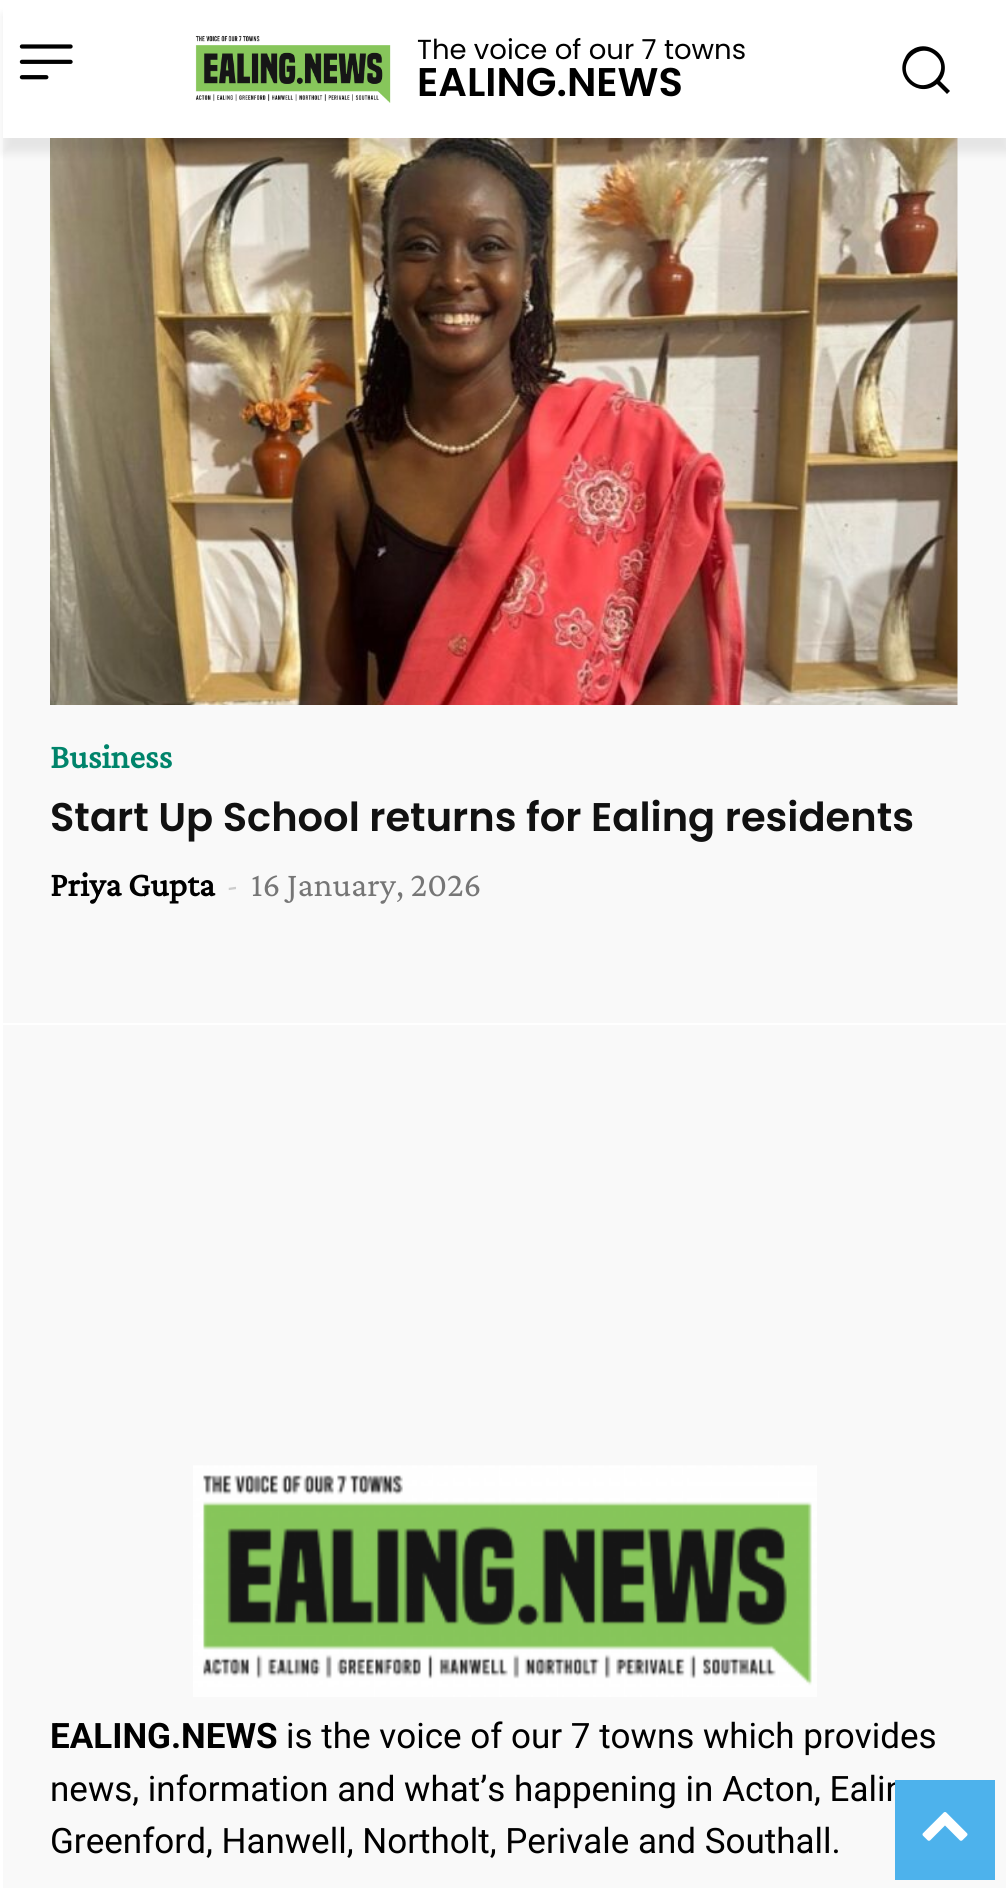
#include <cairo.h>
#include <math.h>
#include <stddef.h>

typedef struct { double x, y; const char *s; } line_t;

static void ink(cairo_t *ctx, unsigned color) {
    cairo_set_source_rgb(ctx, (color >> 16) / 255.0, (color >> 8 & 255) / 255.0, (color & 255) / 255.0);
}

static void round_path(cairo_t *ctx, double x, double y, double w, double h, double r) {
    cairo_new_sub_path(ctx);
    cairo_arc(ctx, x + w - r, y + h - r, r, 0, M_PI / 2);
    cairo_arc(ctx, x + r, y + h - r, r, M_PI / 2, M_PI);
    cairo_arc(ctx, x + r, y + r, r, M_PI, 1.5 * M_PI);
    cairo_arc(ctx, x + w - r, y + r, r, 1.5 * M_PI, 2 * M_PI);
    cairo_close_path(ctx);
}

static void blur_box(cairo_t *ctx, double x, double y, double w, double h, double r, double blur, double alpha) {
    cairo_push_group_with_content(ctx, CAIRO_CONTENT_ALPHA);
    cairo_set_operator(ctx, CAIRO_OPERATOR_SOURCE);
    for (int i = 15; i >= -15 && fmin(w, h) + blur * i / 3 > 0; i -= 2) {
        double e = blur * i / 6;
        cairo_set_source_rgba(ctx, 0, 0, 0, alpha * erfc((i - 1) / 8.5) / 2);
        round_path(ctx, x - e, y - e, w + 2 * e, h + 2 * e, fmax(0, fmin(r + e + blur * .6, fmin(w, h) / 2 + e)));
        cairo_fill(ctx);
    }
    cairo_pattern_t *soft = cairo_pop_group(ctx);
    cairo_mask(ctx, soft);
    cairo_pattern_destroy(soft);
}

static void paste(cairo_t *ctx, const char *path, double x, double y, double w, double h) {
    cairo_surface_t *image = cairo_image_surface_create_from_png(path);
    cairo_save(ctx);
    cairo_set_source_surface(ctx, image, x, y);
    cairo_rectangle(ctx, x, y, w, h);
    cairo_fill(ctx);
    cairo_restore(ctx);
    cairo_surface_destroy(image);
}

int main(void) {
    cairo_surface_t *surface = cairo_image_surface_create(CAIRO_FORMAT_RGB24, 1006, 1888);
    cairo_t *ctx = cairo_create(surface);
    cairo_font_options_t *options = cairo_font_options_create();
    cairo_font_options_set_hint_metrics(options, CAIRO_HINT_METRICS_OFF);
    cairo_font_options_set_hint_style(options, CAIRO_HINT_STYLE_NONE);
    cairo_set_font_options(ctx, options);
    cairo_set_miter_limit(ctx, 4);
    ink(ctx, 0xFFFFFF);
    cairo_paint(ctx);
    paste(ctx, "media/1.png", 19, 44, 54, 36);
    paste(ctx, "media/2.png", 195, 35, 196, 68);
    ink(ctx, 0x000000);
    cairo_new_path(ctx);
    cairo_move_to(ctx, 950, 91);
    cairo_line_to(ctx, 940, 81);
    cairo_curve_to(ctx, 948, 72, 946, 57, 935, 50);
    cairo_curve_to(ctx, 929, 46, 922, 45, 915, 48);
    cairo_curve_to(ctx, 911, 50, 907, 53, 905, 58);
    cairo_curve_to(ctx, 894, 78, 919, 99, 937, 84);
    cairo_line_to(ctx, 947, 94);
    cairo_close_path(ctx);
    cairo_move_to(ctx, 911, 80);
    cairo_curve_to(ctx, 895, 64, 920, 40, 936, 56);
    cairo_curve_to(ctx, 952, 71, 927, 96, 911, 80);
    cairo_close_path(ctx);
    cairo_fill(ctx);
    ink(ctx, 0xF9F9F9);
    cairo_rectangle(ctx, 3, 138, 1003, 885);
    cairo_fill(ctx);
    paste(ctx, "media/3.png", 50, 138, 908, 567);
    cairo_save(ctx);
    cairo_set_fill_rule(ctx, CAIRO_FILL_RULE_EVEN_ODD);
    cairo_new_path(ctx);
    cairo_move_to(ctx, 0, 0);
    cairo_line_to(ctx, 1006, 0);
    cairo_line_to(ctx, 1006, 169);
    cairo_line_to(ctx, 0, 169);
    cairo_close_path(ctx);
    cairo_move_to(ctx, 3, 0);
    cairo_line_to(ctx, 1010, 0);
    cairo_line_to(ctx, 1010, 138);
    cairo_line_to(ctx, 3, 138);
    cairo_close_path(ctx);
    cairo_clip(ctx);
    ink(ctx, 0x000000);
    blur_box(ctx, 3, 15, 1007, 138, 0, 5, 0.08);
    cairo_restore(ctx);
    cairo_select_font_face(ctx, "Poppins", CAIRO_FONT_SLANT_NORMAL, CAIRO_FONT_WEIGHT_NORMAL);
    cairo_set_font_size(ctx, 27.5);
    ink(ctx, 0x000000);
    cairo_move_to(ctx, 417, 59);
    cairo_show_text(ctx, "The voice of our 7 towns");
    cairo_select_font_face(ctx, "Poppins SemiBold", CAIRO_FONT_SLANT_NORMAL, CAIRO_FONT_WEIGHT_NORMAL);
    cairo_set_font_size(ctx, 40);
    cairo_move_to(ctx, 417, 96);
    cairo_show_text(ctx, "EALING.NEWS");
    cairo_select_font_face(ctx, "Crimson Pro", CAIRO_FONT_SLANT_NORMAL, CAIRO_FONT_WEIGHT_BOLD);
    cairo_set_font_size(ctx, 35);
    ink(ctx, 0x00846B);
    cairo_move_to(ctx, 50, 768);
    cairo_show_text(ctx, "Business");
    cairo_select_font_face(ctx, "Poppins SemiBold", CAIRO_FONT_SLANT_NORMAL, CAIRO_FONT_WEIGHT_NORMAL);
    cairo_set_font_size(ctx, 40);
    ink(ctx, 0x111111);
    cairo_move_to(ctx, 50, 831);
    cairo_show_text(ctx, "Start Up School returns for Ealing residents");
    cairo_select_font_face(ctx, "Crimson Pro", CAIRO_FONT_SLANT_NORMAL, CAIRO_FONT_WEIGHT_BOLD);
    cairo_set_font_size(ctx, 35);
    ink(ctx, 0x000000);
    cairo_move_to(ctx, 50, 896);
    cairo_show_text(ctx, "Priya Gupta");
    cairo_select_font_face(ctx, "Crimson Pro", CAIRO_FONT_SLANT_NORMAL, CAIRO_FONT_WEIGHT_NORMAL);
    ink(ctx, 0xCCCCCC);
    cairo_move_to(ctx, 226, 896);
    cairo_show_text(ctx, "-");
    ink(ctx, 0x767676);
    cairo_move_to(ctx, 251, 896);
    cairo_show_text(ctx, "16 January, 2026");
    ink(ctx, 0xF9F9F9);
    cairo_rectangle(ctx, 3, 1025, 1003, 863);
    cairo_fill(ctx);
    paste(ctx, "media/4.png", 193, 1465, 624, 232);
    cairo_select_font_face(ctx, "Roboto", CAIRO_FONT_SLANT_NORMAL, CAIRO_FONT_WEIGHT_BOLD);
    ink(ctx, 0x000000);
    cairo_move_to(ctx, 50, 1748);
    cairo_show_text(ctx, "EALING.NEWS");
    cairo_select_font_face(ctx, "Roboto", CAIRO_FONT_SLANT_NORMAL, CAIRO_FONT_WEIGHT_NORMAL);
    {
        static const line_t items[] = {
            {286, 1748, "is the voice of our 7 towns which provides"},
            {50, 1801, "news, information and what’s happening in Acton, Ealin"},
            {50, 1853, "Greenford, Hanwell, Northolt, Perivale and Southall."},
        };
        for (size_t i = 0; i < sizeof items / sizeof *items; i++) {
            cairo_move_to(ctx, items[i].x, items[i].y);
            cairo_show_text(ctx, items[i].s);
        }
    }
    ink(ctx, 0x4DB2EC);
    cairo_rectangle(ctx, 895, 1780, 100, 100);
    cairo_fill(ctx);
    paste(ctx, "media/5.png", 922, 1812, 46, 29);
    cairo_surface_write_to_png(surface, "image.png");
    cairo_font_options_destroy(options);
    cairo_destroy(ctx);
    cairo_surface_destroy(surface);
    return 0;
}
